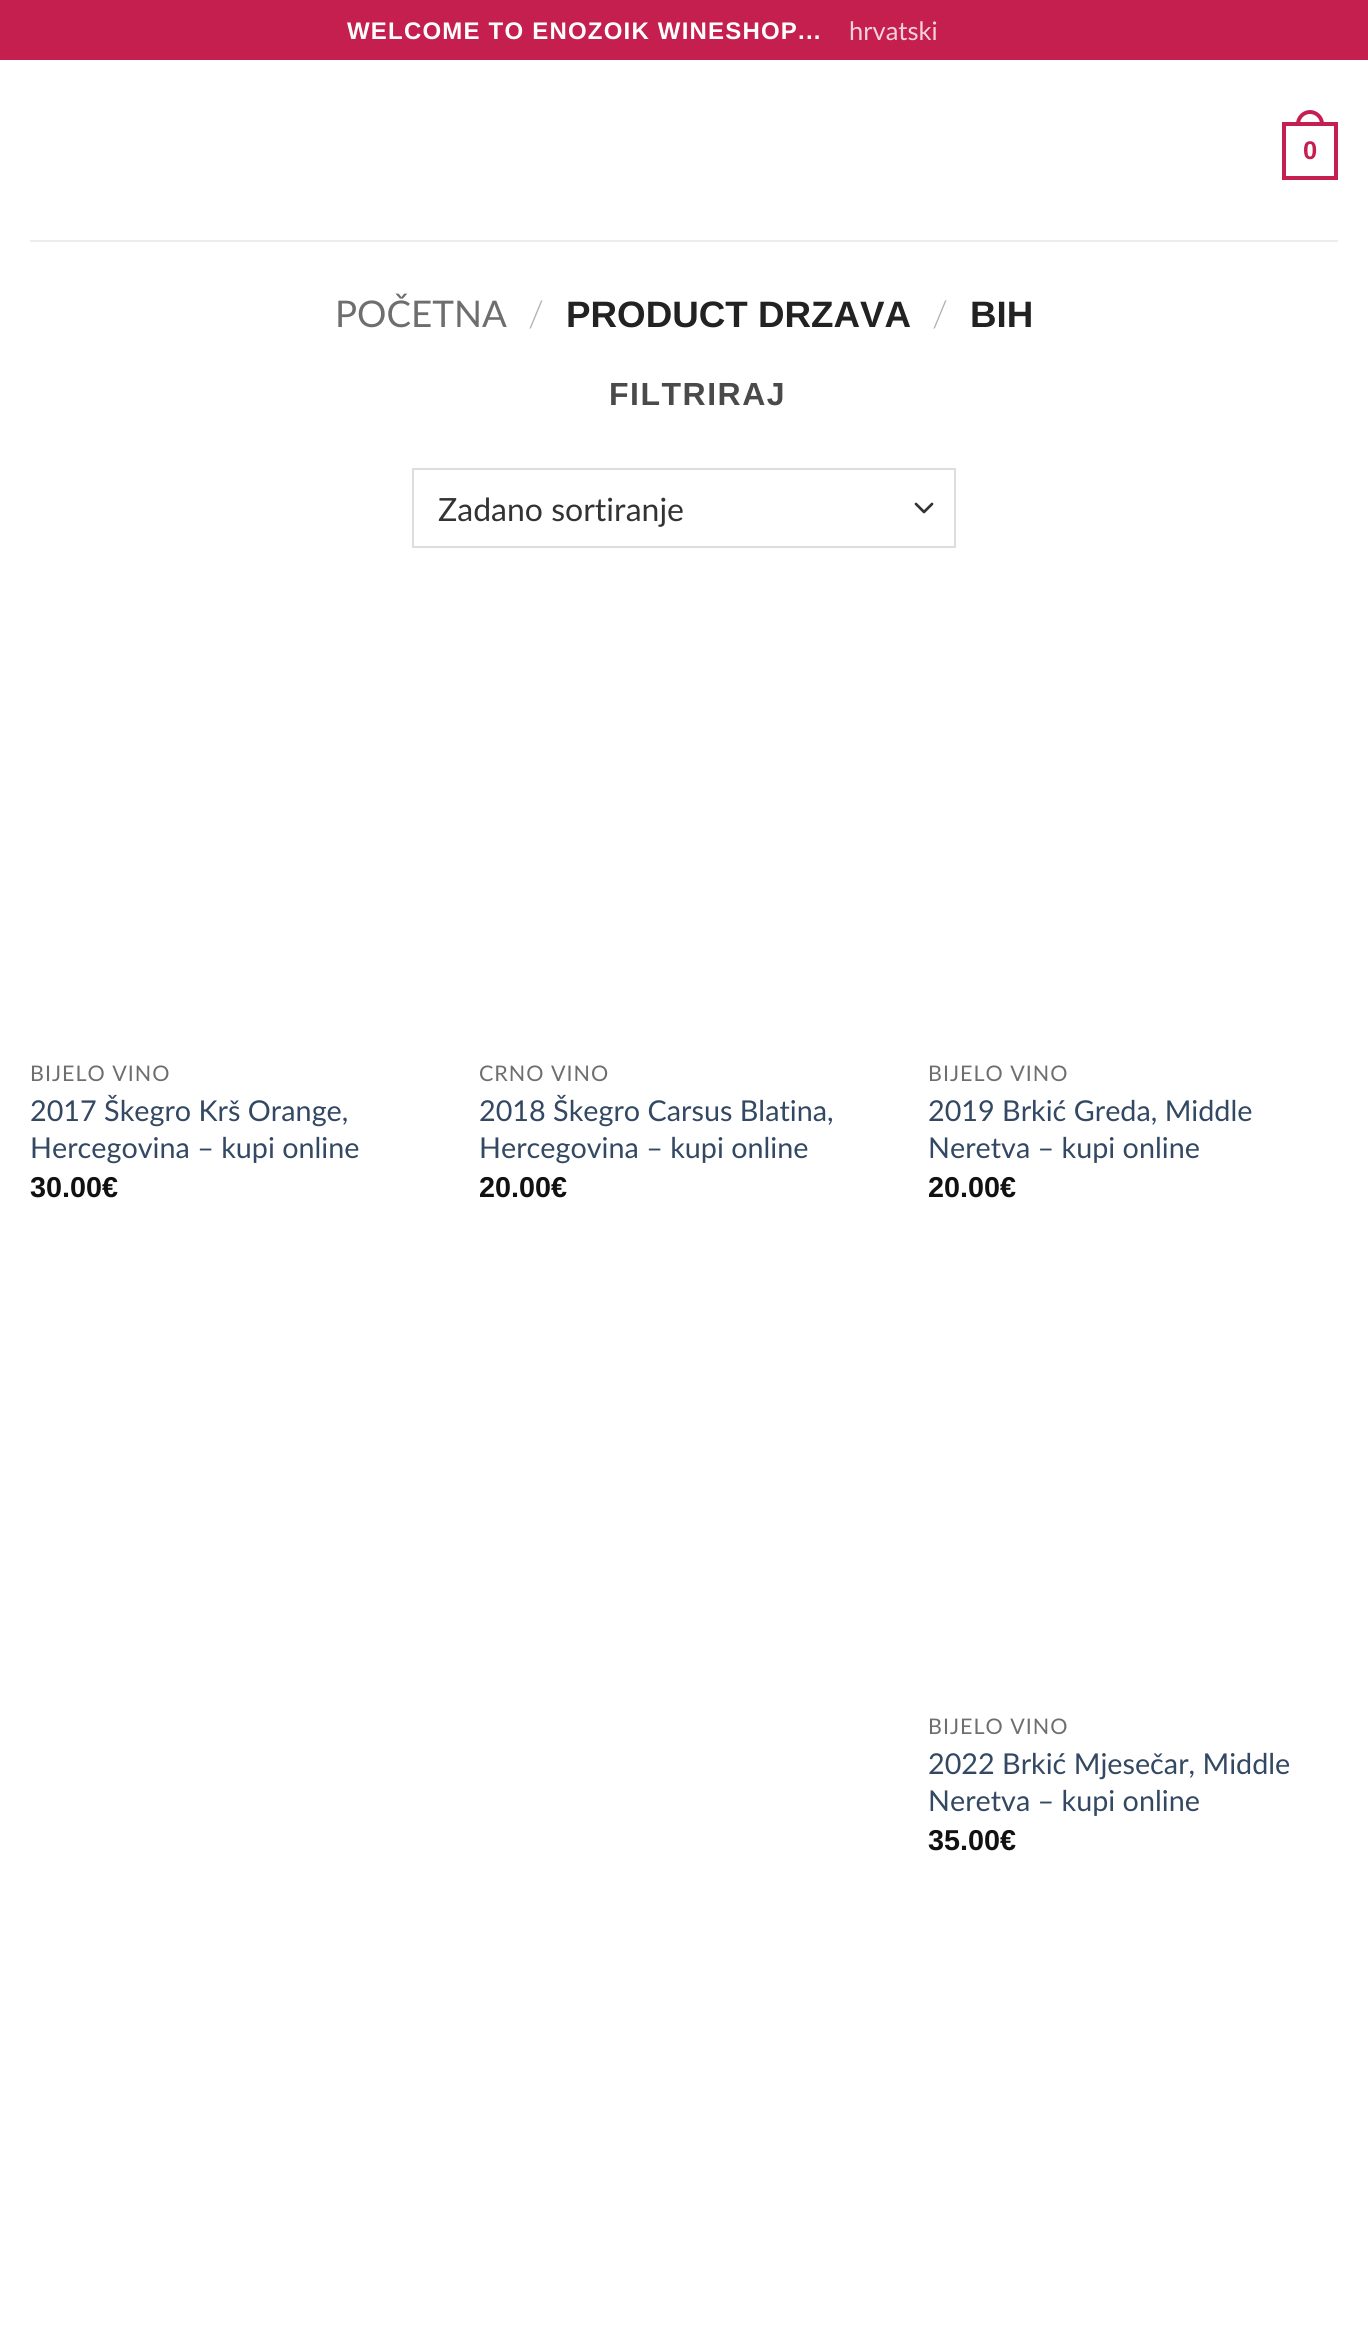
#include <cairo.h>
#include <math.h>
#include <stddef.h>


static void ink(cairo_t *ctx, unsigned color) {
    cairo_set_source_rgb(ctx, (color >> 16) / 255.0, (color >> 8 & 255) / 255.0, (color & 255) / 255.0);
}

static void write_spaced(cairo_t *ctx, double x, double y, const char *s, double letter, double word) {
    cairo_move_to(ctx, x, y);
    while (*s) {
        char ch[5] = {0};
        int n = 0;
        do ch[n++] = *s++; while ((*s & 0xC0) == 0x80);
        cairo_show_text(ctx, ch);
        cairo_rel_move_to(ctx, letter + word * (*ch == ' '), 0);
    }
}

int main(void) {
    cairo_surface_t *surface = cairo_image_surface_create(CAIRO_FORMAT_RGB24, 1368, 2336);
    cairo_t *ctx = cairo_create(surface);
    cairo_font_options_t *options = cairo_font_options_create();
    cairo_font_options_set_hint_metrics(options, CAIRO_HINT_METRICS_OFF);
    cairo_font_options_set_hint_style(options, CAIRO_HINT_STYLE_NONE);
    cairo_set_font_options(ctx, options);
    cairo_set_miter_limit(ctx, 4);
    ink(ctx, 0xFFFFFF);
    cairo_paint(ctx);
    ink(ctx, 0xC41F4E);
    cairo_rectangle(ctx, 0, 0, 1368, 60);
    cairo_fill(ctx);
    cairo_select_font_face(ctx, "Liberation Sans", CAIRO_FONT_SLANT_NORMAL, CAIRO_FONT_WEIGHT_BOLD);
    cairo_set_font_size(ctx, 24);
    ink(ctx, 0xFFFFFF);
    write_spaced(ctx, 347, 39, "WELCOME TO ENOZOIK WINESHOP...", 1.2, 0);
    cairo_select_font_face(ctx, "Lato", CAIRO_FONT_SLANT_NORMAL, CAIRO_FONT_WEIGHT_NORMAL);
    cairo_set_font_size(ctx, 25.5);
    ink(ctx, 0xF3D2DC);
    cairo_move_to(ctx, 849, 40);
    cairo_show_text(ctx, "hrvatski");
    cairo_rectangle(ctx, 1284, 124, 52, 54);
    ink(ctx, 0xC41F4E);
    cairo_set_line_width(ctx, 4);
    cairo_stroke(ctx);
    cairo_set_fill_rule(ctx, CAIRO_FILL_RULE_EVEN_ODD);
    cairo_new_path(ctx);
    cairo_move_to(ctx, 1310, 110);
    cairo_curve_to(ctx, 1317.5, 110, 1324, 116.5, 1324, 124);
    cairo_line_to(ctx, 1324, 126);
    cairo_line_to(ctx, 1296, 126);
    cairo_line_to(ctx, 1296, 124);
    cairo_curve_to(ctx, 1296, 116.5, 1302.5, 110, 1310, 110);
    cairo_close_path(ctx);
    cairo_move_to(ctx, 1310, 114);
    cairo_curve_to(ctx, 1315.5, 114, 1320, 118.5, 1320, 124);
    cairo_line_to(ctx, 1320, 126);
    cairo_line_to(ctx, 1300, 126);
    cairo_line_to(ctx, 1300, 124);
    cairo_curve_to(ctx, 1300, 118.5, 1304.5, 114, 1310, 114);
    cairo_close_path(ctx);
    cairo_fill(ctx);
    cairo_select_font_face(ctx, "Liberation Sans", CAIRO_FONT_SLANT_NORMAL, CAIRO_FONT_WEIGHT_BOLD);
    cairo_move_to(ctx, 1303, 159);
    cairo_show_text(ctx, "0");
    ink(ctx, 0xEDEDED);
    cairo_rectangle(ctx, 30, 240, 1308, 2);
    cairo_fill(ctx);
    cairo_select_font_face(ctx, "Lato", CAIRO_FONT_SLANT_NORMAL, CAIRO_FONT_WEIGHT_NORMAL);
    cairo_set_font_size(ctx, 36.75);
    ink(ctx, 0x6E6E6E);
    cairo_move_to(ctx, 335, 327);
    cairo_show_text(ctx, "POČETNA");
    cairo_select_font_face(ctx, "Lato Light", CAIRO_FONT_SLANT_NORMAL, CAIRO_FONT_WEIGHT_NORMAL);
    ink(ctx, 0xB2B2B2);
    cairo_move_to(ctx, 528, 327);
    cairo_show_text(ctx, "/");
    cairo_select_font_face(ctx, "Liberation Sans", CAIRO_FONT_SLANT_NORMAL, CAIRO_FONT_WEIGHT_BOLD);
    ink(ctx, 0x222222);
    cairo_move_to(ctx, 566, 327);
    cairo_show_text(ctx, "PRODUCT DRZAVA");
    cairo_select_font_face(ctx, "Lato Light", CAIRO_FONT_SLANT_NORMAL, CAIRO_FONT_WEIGHT_NORMAL);
    ink(ctx, 0xB2B2B2);
    cairo_move_to(ctx, 932, 327);
    cairo_show_text(ctx, "/");
    cairo_select_font_face(ctx, "Liberation Sans", CAIRO_FONT_SLANT_NORMAL, CAIRO_FONT_WEIGHT_BOLD);
    ink(ctx, 0x222222);
    cairo_move_to(ctx, 970, 327);
    cairo_show_text(ctx, "BIH");
    cairo_set_font_size(ctx, 32);
    ink(ctx, 0x4A4A4A);
    write_spaced(ctx, 609, 405, "FILTRIRAJ", 1.5, 0);
    cairo_new_path(ctx);
    cairo_move_to(ctx, 916, 504);
    cairo_line_to(ctx, 924, 512);
    cairo_line_to(ctx, 932, 504);
    ink(ctx, 0x333333);
    cairo_set_line_width(ctx, 2.7);
    cairo_set_line_cap(ctx, CAIRO_LINE_CAP_ROUND);
    cairo_set_line_join(ctx, CAIRO_LINE_JOIN_ROUND);
    cairo_stroke(ctx);
    cairo_rectangle(ctx, 413, 469, 542, 78);
    ink(ctx, 0xDDDDDD);
    cairo_set_line_width(ctx, 2);
    cairo_set_line_cap(ctx, CAIRO_LINE_CAP_BUTT);
    cairo_set_line_join(ctx, CAIRO_LINE_JOIN_MITER);
    cairo_stroke(ctx);
    cairo_select_font_face(ctx, "Lato", CAIRO_FONT_SLANT_NORMAL, CAIRO_FONT_WEIGHT_NORMAL);
    ink(ctx, 0x333333);
    cairo_move_to(ctx, 438, 521);
    cairo_show_text(ctx, "Zadano sortiranje");
    cairo_set_font_size(ctx, 21.5);
    ink(ctx, 0x6E6E6E);
    write_spaced(ctx, 30, 1081, "BIJELO VINO", 1, 0);
    cairo_set_font_size(ctx, 28.75);
    ink(ctx, 0x334862);
    cairo_move_to(ctx, 30, 1121);
    cairo_show_text(ctx, "2017 Škegro Krš Orange,");
    cairo_move_to(ctx, 30, 1158);
    cairo_show_text(ctx, "Hercegovina – kupi online");
    cairo_select_font_face(ctx, "Liberation Sans", CAIRO_FONT_SLANT_NORMAL, CAIRO_FONT_WEIGHT_BOLD);
    ink(ctx, 0x111111);
    cairo_move_to(ctx, 30, 1197);
    cairo_show_text(ctx, "30.00€");
    cairo_select_font_face(ctx, "Lato", CAIRO_FONT_SLANT_NORMAL, CAIRO_FONT_WEIGHT_NORMAL);
    cairo_set_font_size(ctx, 21.5);
    ink(ctx, 0x6E6E6E);
    write_spaced(ctx, 479, 1081, "CRNO VINO", 1, 0);
    cairo_set_font_size(ctx, 28.75);
    ink(ctx, 0x334862);
    cairo_move_to(ctx, 479, 1121);
    cairo_show_text(ctx, "2018 Škegro Carsus Blatina,");
    cairo_move_to(ctx, 479, 1158);
    cairo_show_text(ctx, "Hercegovina – kupi online");
    cairo_select_font_face(ctx, "Liberation Sans", CAIRO_FONT_SLANT_NORMAL, CAIRO_FONT_WEIGHT_BOLD);
    ink(ctx, 0x111111);
    cairo_move_to(ctx, 479, 1197);
    cairo_show_text(ctx, "20.00€");
    cairo_select_font_face(ctx, "Lato", CAIRO_FONT_SLANT_NORMAL, CAIRO_FONT_WEIGHT_NORMAL);
    cairo_set_font_size(ctx, 21.5);
    ink(ctx, 0x6E6E6E);
    write_spaced(ctx, 928, 1081, "BIJELO VINO", 1, 0);
    cairo_set_font_size(ctx, 28.75);
    ink(ctx, 0x334862);
    cairo_move_to(ctx, 928, 1121);
    cairo_show_text(ctx, "2019 Brkić Greda, Middle");
    cairo_move_to(ctx, 928, 1158);
    cairo_show_text(ctx, "Neretva – kupi online");
    cairo_select_font_face(ctx, "Liberation Sans", CAIRO_FONT_SLANT_NORMAL, CAIRO_FONT_WEIGHT_BOLD);
    ink(ctx, 0x111111);
    cairo_move_to(ctx, 928, 1197);
    cairo_show_text(ctx, "20.00€");
    cairo_select_font_face(ctx, "Lato", CAIRO_FONT_SLANT_NORMAL, CAIRO_FONT_WEIGHT_NORMAL);
    cairo_set_font_size(ctx, 21.5);
    ink(ctx, 0x6E6E6E);
    write_spaced(ctx, 928, 1734, "BIJELO VINO", 1, 0);
    cairo_set_font_size(ctx, 28.75);
    ink(ctx, 0x334862);
    cairo_move_to(ctx, 928, 1774);
    cairo_show_text(ctx, "2022 Brkić Mjesečar, Middle");
    cairo_move_to(ctx, 928, 1811);
    cairo_show_text(ctx, "Neretva – kupi online");
    cairo_select_font_face(ctx, "Liberation Sans", CAIRO_FONT_SLANT_NORMAL, CAIRO_FONT_WEIGHT_BOLD);
    ink(ctx, 0x111111);
    cairo_move_to(ctx, 928, 1850);
    cairo_show_text(ctx, "35.00€");
    cairo_surface_write_to_png(surface, "image.png");
    cairo_font_options_destroy(options);
    cairo_destroy(ctx);
    cairo_surface_destroy(surface);
    return 0;
}
